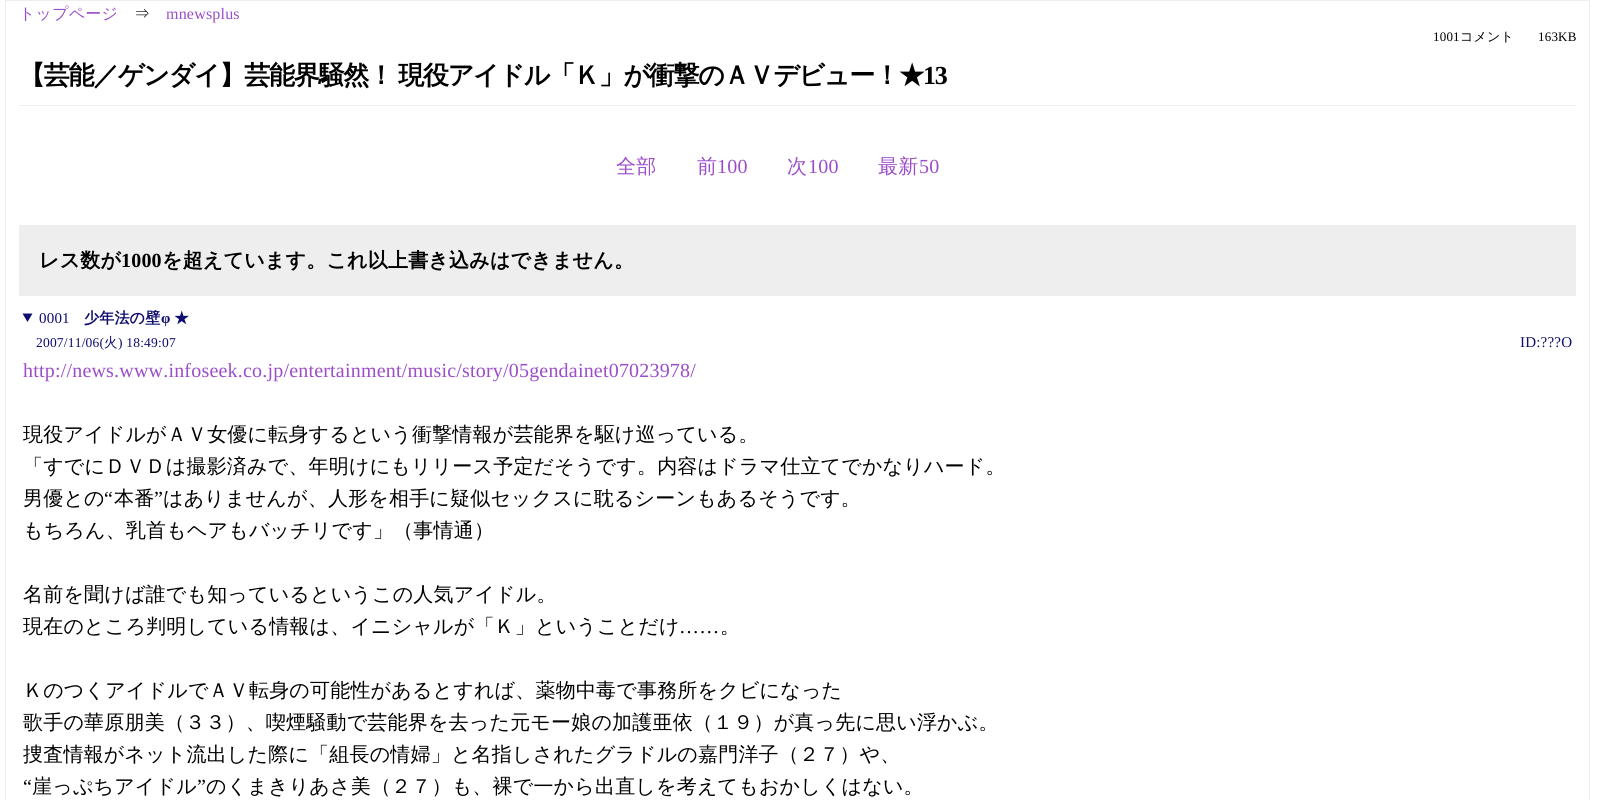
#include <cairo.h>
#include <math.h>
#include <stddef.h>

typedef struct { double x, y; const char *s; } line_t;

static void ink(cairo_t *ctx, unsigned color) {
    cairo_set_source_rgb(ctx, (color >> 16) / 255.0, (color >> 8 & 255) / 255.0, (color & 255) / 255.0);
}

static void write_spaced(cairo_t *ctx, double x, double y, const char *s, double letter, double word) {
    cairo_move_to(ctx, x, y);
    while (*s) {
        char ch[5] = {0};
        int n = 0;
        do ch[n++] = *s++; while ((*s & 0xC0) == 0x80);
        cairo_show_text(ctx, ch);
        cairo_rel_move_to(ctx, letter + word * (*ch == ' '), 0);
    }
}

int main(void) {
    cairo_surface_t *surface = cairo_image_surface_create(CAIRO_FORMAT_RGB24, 1620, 800);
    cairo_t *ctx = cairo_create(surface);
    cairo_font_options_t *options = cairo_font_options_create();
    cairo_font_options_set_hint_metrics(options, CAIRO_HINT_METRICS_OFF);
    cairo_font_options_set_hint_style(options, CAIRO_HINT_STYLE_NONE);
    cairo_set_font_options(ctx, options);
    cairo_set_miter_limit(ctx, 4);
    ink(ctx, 0xFFFFFF);
    cairo_paint(ctx);
    cairo_rectangle(ctx, 5.5, 0.5, 1584, 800);
    ink(ctx, 0xEEEEEE);
    cairo_set_line_width(ctx, 1);
    cairo_stroke(ctx);
    cairo_select_font_face(ctx, "WenQuanYi Zen Hei Medium", CAIRO_FONT_SLANT_NORMAL, CAIRO_FONT_WEIGHT_NORMAL);
    cairo_set_font_size(ctx, 16);
    ink(ctx, 0x9B4DCA);
    write_spaced(ctx, 19, 19, "トップページ", 0.2, 0);
    ink(ctx, 0x000000);
    write_spaced(ctx, 134, 19, "⇒", 0.2, 0);
    cairo_select_font_face(ctx, "Liberation Serif", CAIRO_FONT_SLANT_NORMAL, CAIRO_FONT_WEIGHT_NORMAL);
    ink(ctx, 0x9B4DCA);
    write_spaced(ctx, 166, 19, "mnewsplus", 0.2, 0);
    cairo_set_font_size(ctx, 13);
    ink(ctx, 0x000000);
    write_spaced(ctx, 1433, 41, "1001", 0.2, 0);
    cairo_select_font_face(ctx, "WenQuanYi Zen Hei Medium", CAIRO_FONT_SLANT_NORMAL, CAIRO_FONT_WEIGHT_NORMAL);
    write_spaced(ctx, 1460, 41, "コメント", 0.2, 0);
    cairo_select_font_face(ctx, "Liberation Serif", CAIRO_FONT_SLANT_NORMAL, CAIRO_FONT_WEIGHT_NORMAL);
    write_spaced(ctx, 1538, 41, "163KB", 0.2, 0);
    ink(ctx, 0xEEEEEE);
    cairo_rectangle(ctx, 19, 105, 1557, 1);
    cairo_fill(ctx);
    cairo_select_font_face(ctx, "WenQuanYi Zen Hei", CAIRO_FONT_SLANT_NORMAL, CAIRO_FONT_WEIGHT_BOLD);
    cairo_set_font_size(ctx, 26);
    ink(ctx, 0x000000);
    write_spaced(ctx, 19, 84, "【芸能／ゲンダイ】芸能界騒然！ 現役アイドル「Ｋ」が衝撃のＡＶデビュー！★", -1.25, -1);
    cairo_select_font_face(ctx, "Liberation Serif", CAIRO_FONT_SLANT_NORMAL, CAIRO_FONT_WEIGHT_BOLD);
    write_spaced(ctx, 923, 84, "13", -1.25, 0);
    cairo_select_font_face(ctx, "WenQuanYi Zen Hei Medium", CAIRO_FONT_SLANT_NORMAL, CAIRO_FONT_WEIGHT_NORMAL);
    cairo_set_font_size(ctx, 20);
    ink(ctx, 0x9B4DCA);
    write_spaced(ctx, 616, 173, "全部", 0.2, 0);
    write_spaced(ctx, 697, 173, "前", 0.2, 0);
    cairo_select_font_face(ctx, "Liberation Serif", CAIRO_FONT_SLANT_NORMAL, CAIRO_FONT_WEIGHT_NORMAL);
    write_spaced(ctx, 717, 173, "100", 0.2, 0);
    cairo_select_font_face(ctx, "WenQuanYi Zen Hei Medium", CAIRO_FONT_SLANT_NORMAL, CAIRO_FONT_WEIGHT_NORMAL);
    write_spaced(ctx, 787, 173, "次", 0.2, 0);
    cairo_select_font_face(ctx, "Liberation Serif", CAIRO_FONT_SLANT_NORMAL, CAIRO_FONT_WEIGHT_NORMAL);
    write_spaced(ctx, 808, 173, "100", 0.2, 0);
    cairo_select_font_face(ctx, "WenQuanYi Zen Hei Medium", CAIRO_FONT_SLANT_NORMAL, CAIRO_FONT_WEIGHT_NORMAL);
    write_spaced(ctx, 878, 173, "最新", 0.2, 0);
    cairo_select_font_face(ctx, "Liberation Serif", CAIRO_FONT_SLANT_NORMAL, CAIRO_FONT_WEIGHT_NORMAL);
    write_spaced(ctx, 919, 173, "50", 0.2, 0);
    ink(ctx, 0xEEEEEE);
    cairo_rectangle(ctx, 19, 225, 1557, 71);
    cairo_fill(ctx);
    cairo_select_font_face(ctx, "WenQuanYi Zen Hei", CAIRO_FONT_SLANT_NORMAL, CAIRO_FONT_WEIGHT_BOLD);
    ink(ctx, 0x000000);
    write_spaced(ctx, 39, 267, "レス数が", 0.2, 0);
    cairo_select_font_face(ctx, "Liberation Serif", CAIRO_FONT_SLANT_NORMAL, CAIRO_FONT_WEIGHT_BOLD);
    write_spaced(ctx, 121, 267, "1000", 0.2, 0);
    cairo_select_font_face(ctx, "WenQuanYi Zen Hei", CAIRO_FONT_SLANT_NORMAL, CAIRO_FONT_WEIGHT_BOLD);
    write_spaced(ctx, 162, 267, "を超えています。これ以上書き込みはできません。", 0.2, 0);
    ink(ctx, 0x0E0E6E);
    cairo_new_path(ctx);
    cairo_move_to(ctx, 22.5, 313.5);
    cairo_line_to(ctx, 32.5, 313.5);
    cairo_line_to(ctx, 27.5, 322);
    cairo_close_path(ctx);
    cairo_fill(ctx);
    cairo_select_font_face(ctx, "Liberation Serif", CAIRO_FONT_SLANT_NORMAL, CAIRO_FONT_WEIGHT_NORMAL);
    cairo_set_font_size(ctx, 15);
    write_spaced(ctx, 39, 323, "0001", 0.2, 0);
    cairo_select_font_face(ctx, "WenQuanYi Zen Hei", CAIRO_FONT_SLANT_NORMAL, CAIRO_FONT_WEIGHT_BOLD);
    write_spaced(ctx, 84, 323, "少年法の壁", 0.2, 0);
    cairo_select_font_face(ctx, "Liberation Serif", CAIRO_FONT_SLANT_NORMAL, CAIRO_FONT_WEIGHT_BOLD);
    write_spaced(ctx, 161, 323, "φ", 0.2, 0);
    cairo_select_font_face(ctx, "WenQuanYi Zen Hei", CAIRO_FONT_SLANT_NORMAL, CAIRO_FONT_WEIGHT_BOLD);
    write_spaced(ctx, 174, 323, "★", 0.2, 0);
    cairo_select_font_face(ctx, "Liberation Serif", CAIRO_FONT_SLANT_NORMAL, CAIRO_FONT_WEIGHT_NORMAL);
    cairo_set_font_size(ctx, 13.5);
    write_spaced(ctx, 36, 347, "2007/11/06(", 0.2, 0);
    cairo_select_font_face(ctx, "WenQuanYi Zen Hei Medium", CAIRO_FONT_SLANT_NORMAL, CAIRO_FONT_WEIGHT_NORMAL);
    write_spaced(ctx, 104, 347, "火", 0.2, 0);
    cairo_select_font_face(ctx, "Liberation Serif", CAIRO_FONT_SLANT_NORMAL, CAIRO_FONT_WEIGHT_NORMAL);
    write_spaced(ctx, 118, 347, ") 18:49:07", 0.2, 0);
    cairo_set_font_size(ctx, 15);
    write_spaced(ctx, 1520, 347, "ID:?\077?O", 0.2, 0);
    cairo_set_font_size(ctx, 20);
    ink(ctx, 0x9B4DCA);
    write_spaced(ctx, 23, 377, "http://news.www.infoseek.co.jp/entertainment/music/story/05gendainet07023978/", 0.2, 0);
    cairo_select_font_face(ctx, "WenQuanYi Zen Hei Medium", CAIRO_FONT_SLANT_NORMAL, CAIRO_FONT_WEIGHT_NORMAL);
    ink(ctx, 0x000000);
    {
        static const line_t items[] = {
            {23, 441, "現役アイドルがＡＶ女優に転身するという衝撃情報が芸能界を駆け巡っている。"},
            {23, 473, "「すでにＤＶＤは撮影済みで、年明けにもリリース予定だそうです。内容はドラマ仕立てでかなりハード。"},
            {23, 505, "男優との"},
        };
        for (size_t i = 0; i < sizeof items / sizeof *items; i++) {
            write_spaced(ctx, items[i].x, items[i].y, items[i].s, 0.2, 0);
        }
    }
    cairo_select_font_face(ctx, "Liberation Serif", CAIRO_FONT_SLANT_NORMAL, CAIRO_FONT_WEIGHT_NORMAL);
    write_spaced(ctx, 104, 505, "“", 0.2, 0);
    cairo_select_font_face(ctx, "WenQuanYi Zen Hei Medium", CAIRO_FONT_SLANT_NORMAL, CAIRO_FONT_WEIGHT_NORMAL);
    write_spaced(ctx, 114, 505, "本番", 0.2, 0);
    cairo_select_font_face(ctx, "Liberation Serif", CAIRO_FONT_SLANT_NORMAL, CAIRO_FONT_WEIGHT_NORMAL);
    write_spaced(ctx, 154, 505, "”", 0.2, 0);
    cairo_select_font_face(ctx, "WenQuanYi Zen Hei Medium", CAIRO_FONT_SLANT_NORMAL, CAIRO_FONT_WEIGHT_NORMAL);
    {
        static const line_t items[] = {
            {163, 505, "はありませんが、人形を相手に疑似セックスに耽るシーンもあるそうです。"},
            {23, 537, "もちろん、乳首もヘアもバッチリです」（事情通）"},
            {23, 601, "名前を聞けば誰でも知っているというこの人気アイドル。"},
            {23, 633, "現在のところ判明している情報は、イニシャルが「Ｋ」ということだけ"},
        };
        for (size_t i = 0; i < sizeof items / sizeof *items; i++) {
            write_spaced(ctx, items[i].x, items[i].y, items[i].s, 0.2, 0);
        }
    }
    cairo_select_font_face(ctx, "Liberation Serif", CAIRO_FONT_SLANT_NORMAL, CAIRO_FONT_WEIGHT_NORMAL);
    write_spaced(ctx, 679, 633, "……", 0.2, 0);
    cairo_select_font_face(ctx, "WenQuanYi Zen Hei Medium", CAIRO_FONT_SLANT_NORMAL, CAIRO_FONT_WEIGHT_NORMAL);
    {
        static const line_t items[] = {
            {720, 633, "。"},
            {23, 697, "ＫのつくアイドルでＡＶ転身の可能性があるとすれば、薬物中毒で事務所をクビになった"},
            {23, 729, "歌手の華原朋美（３３）、喫煙騒動で芸能界を去った元モー娘の加護亜依（１９）が真っ先に思い浮かぶ。"},
            {23, 761, "捜査情報がネット流出した際に「組長の情婦」と名指しされたグラドルの嘉門洋子（２７）や、"},
        };
        for (size_t i = 0; i < sizeof items / sizeof *items; i++) {
            write_spaced(ctx, items[i].x, items[i].y, items[i].s, 0.2, 0);
        }
    }
    cairo_select_font_face(ctx, "Liberation Serif", CAIRO_FONT_SLANT_NORMAL, CAIRO_FONT_WEIGHT_NORMAL);
    write_spaced(ctx, 23, 793, "“", 0.2, 0);
    cairo_select_font_face(ctx, "WenQuanYi Zen Hei Medium", CAIRO_FONT_SLANT_NORMAL, CAIRO_FONT_WEIGHT_NORMAL);
    write_spaced(ctx, 32, 793, "崖っぷちアイドル", 0.2, 0);
    cairo_select_font_face(ctx, "Liberation Serif", CAIRO_FONT_SLANT_NORMAL, CAIRO_FONT_WEIGHT_NORMAL);
    write_spaced(ctx, 197, 793, "”", 0.2, 0);
    cairo_select_font_face(ctx, "WenQuanYi Zen Hei Medium", CAIRO_FONT_SLANT_NORMAL, CAIRO_FONT_WEIGHT_NORMAL);
    write_spaced(ctx, 206, 793, "のくまきりあさ美（２７）も、裸で一から出直しを考えてもおかしくはない。", 0.2, 0);
    cairo_surface_write_to_png(surface, "image.png");
    cairo_font_options_destroy(options);
    cairo_destroy(ctx);
    cairo_surface_destroy(surface);
    return 0;
}
